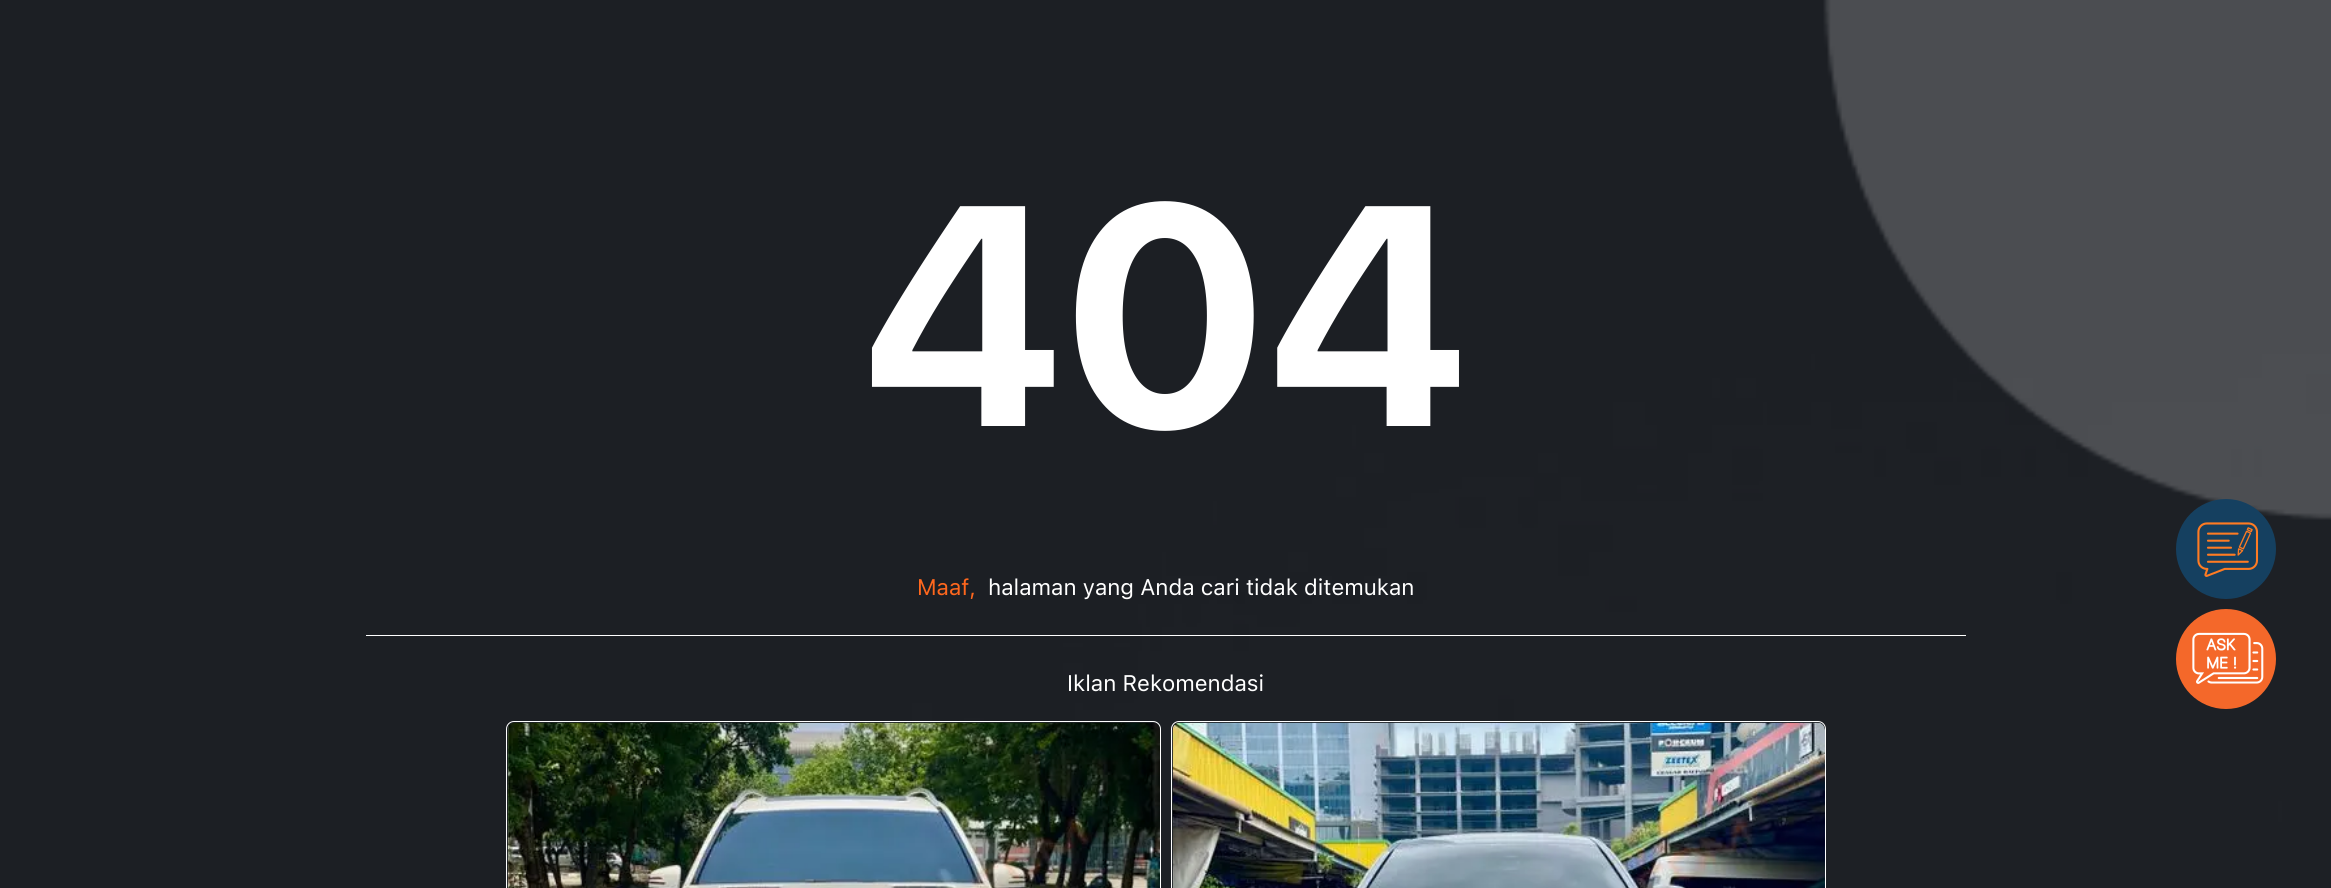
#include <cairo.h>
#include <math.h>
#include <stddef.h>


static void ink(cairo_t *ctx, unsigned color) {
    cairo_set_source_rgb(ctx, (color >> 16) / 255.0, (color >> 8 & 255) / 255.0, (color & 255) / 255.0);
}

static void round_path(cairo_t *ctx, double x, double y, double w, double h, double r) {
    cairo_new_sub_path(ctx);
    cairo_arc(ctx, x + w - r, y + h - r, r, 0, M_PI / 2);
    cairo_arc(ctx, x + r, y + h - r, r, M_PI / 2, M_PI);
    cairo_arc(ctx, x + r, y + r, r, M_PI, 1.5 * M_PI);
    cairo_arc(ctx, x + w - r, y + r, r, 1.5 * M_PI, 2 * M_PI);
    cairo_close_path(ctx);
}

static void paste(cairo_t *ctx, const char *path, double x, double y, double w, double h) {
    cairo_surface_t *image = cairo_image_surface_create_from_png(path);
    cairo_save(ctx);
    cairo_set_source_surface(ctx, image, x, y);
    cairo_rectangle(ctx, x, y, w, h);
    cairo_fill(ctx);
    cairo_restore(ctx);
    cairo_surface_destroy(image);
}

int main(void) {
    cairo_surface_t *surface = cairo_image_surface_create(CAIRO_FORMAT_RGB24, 2331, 888);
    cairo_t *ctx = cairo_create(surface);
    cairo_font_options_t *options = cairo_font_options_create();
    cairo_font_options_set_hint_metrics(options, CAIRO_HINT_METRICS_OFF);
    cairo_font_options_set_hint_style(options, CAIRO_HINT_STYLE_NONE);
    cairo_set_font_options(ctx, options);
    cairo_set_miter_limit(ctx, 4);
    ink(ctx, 0xFFFFFF);
    cairo_paint(ctx);
    paste(ctx, "media/1.png", 0, 0, 2331, 888);
    cairo_select_font_face(ctx, "SF Pro Display", CAIRO_FONT_SLANT_NORMAL, CAIRO_FONT_WEIGHT_BOLD);
    cairo_set_font_size(ctx, 312);
    ink(ctx, 0xFFFFFF);
    cairo_move_to(ctx, 861, 426);
    cairo_show_text(ctx, "404");
    cairo_rectangle(ctx, 366, 635, 1600, 1);
    cairo_fill(ctx);
    cairo_select_font_face(ctx, "SF", CAIRO_FONT_SLANT_NORMAL, CAIRO_FONT_WEIGHT_NORMAL);
    cairo_set_font_size(ctx, 22.5);
    ink(ctx, 0xFF671D);
    cairo_move_to(ctx, 917, 595);
    cairo_show_text(ctx, "Maaf,");
    ink(ctx, 0xFFFFFF);
    cairo_move_to(ctx, 988, 595);
    cairo_show_text(ctx, "halaman yang Anda cari tidak ditemukan");
    cairo_move_to(ctx, 1067, 691);
    cairo_show_text(ctx, "Iklan Rekomendasi");
    round_path(ctx, 506.5, 721.5, 654, 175, 7.5);
    cairo_set_line_width(ctx, 1);
    cairo_stroke(ctx);
    paste(ctx, "media/2.png", 507, 722, 653, 166);
    round_path(ctx, 1171.5, 721.5, 654, 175, 7.5);
    cairo_stroke(ctx);
    paste(ctx, "media/3.png", 1172, 722, 653, 166);
    paste(ctx, "media/4.png", 2176, 499, 100, 100);
    paste(ctx, "media/5.png", 2176, 609, 100, 100);
    cairo_surface_write_to_png(surface, "image.png");
    cairo_font_options_destroy(options);
    cairo_destroy(ctx);
    cairo_surface_destroy(surface);
    return 0;
}
